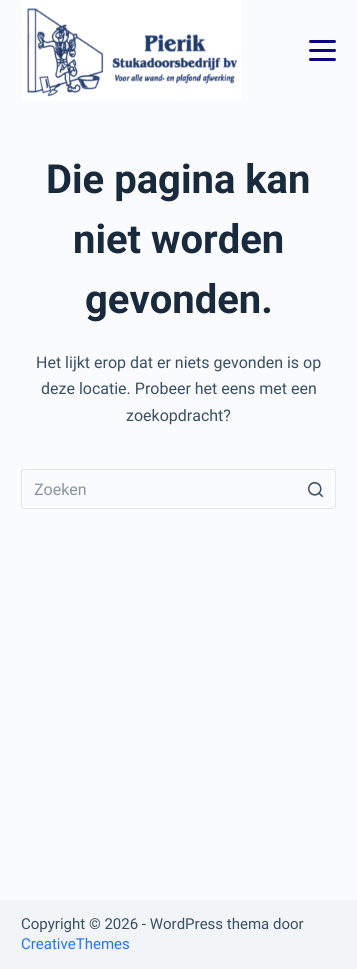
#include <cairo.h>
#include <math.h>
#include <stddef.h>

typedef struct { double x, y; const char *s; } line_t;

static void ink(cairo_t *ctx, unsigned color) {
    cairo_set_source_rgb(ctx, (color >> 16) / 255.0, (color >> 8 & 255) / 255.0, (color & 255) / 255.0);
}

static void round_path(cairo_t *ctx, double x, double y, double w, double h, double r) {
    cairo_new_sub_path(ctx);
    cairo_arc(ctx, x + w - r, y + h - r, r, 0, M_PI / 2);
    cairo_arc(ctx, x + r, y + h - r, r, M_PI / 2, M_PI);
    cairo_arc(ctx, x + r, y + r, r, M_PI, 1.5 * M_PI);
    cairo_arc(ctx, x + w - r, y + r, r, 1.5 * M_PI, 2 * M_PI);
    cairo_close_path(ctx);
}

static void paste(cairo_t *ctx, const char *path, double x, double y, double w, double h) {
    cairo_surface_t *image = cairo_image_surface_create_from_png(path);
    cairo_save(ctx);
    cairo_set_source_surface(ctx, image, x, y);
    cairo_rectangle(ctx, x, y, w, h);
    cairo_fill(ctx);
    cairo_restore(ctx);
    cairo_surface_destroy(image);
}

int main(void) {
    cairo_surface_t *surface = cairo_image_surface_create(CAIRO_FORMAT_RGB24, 357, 969);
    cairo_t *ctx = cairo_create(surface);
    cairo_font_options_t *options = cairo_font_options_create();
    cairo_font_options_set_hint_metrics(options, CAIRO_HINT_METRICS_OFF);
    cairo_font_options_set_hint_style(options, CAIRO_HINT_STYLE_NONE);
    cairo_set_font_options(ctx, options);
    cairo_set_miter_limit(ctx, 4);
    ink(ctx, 0xFAFBFC);
    cairo_paint(ctx);
    paste(ctx, "media/1.png", 21, 0, 221, 100);
    ink(ctx, 0x0D0082);
    round_path(ctx, 309, 40, 27, 3, 1.5);
    cairo_fill(ctx);
    round_path(ctx, 309, 49, 27, 3, 1.5);
    cairo_fill(ctx);
    round_path(ctx, 309, 58, 27, 3, 1.5);
    cairo_fill(ctx);
    cairo_select_font_face(ctx, "Roboto", CAIRO_FONT_SLANT_NORMAL, CAIRO_FONT_WEIGHT_BOLD);
    cairo_set_font_size(ctx, 40);
    ink(ctx, 0x192A3D);
    {
        static const line_t items[] = {
            {46, 193, "Die pagina kan"},
            {73, 253, "niet worden"},
            {85, 313, "gevonden."},
        };
        for (size_t i = 0; i < sizeof items / sizeof *items; i++) {
            cairo_move_to(ctx, items[i].x, items[i].y);
            cairo_show_text(ctx, items[i].s);
        }
    }
    cairo_select_font_face(ctx, "Roboto", CAIRO_FONT_SLANT_NORMAL, CAIRO_FONT_WEIGHT_NORMAL);
    cairo_set_font_size(ctx, 16);
    ink(ctx, 0x3A4F66);
    {
        static const line_t items[] = {
            {36, 368, "Het lijkt erop dat er niets gevonden is op"},
            {41, 394, "deze locatie. Probeer het eens met een"},
            {126, 421, "zoekopdracht?"},
        };
        for (size_t i = 0; i < sizeof items / sizeof *items; i++) {
            cairo_move_to(ctx, items[i].x, items[i].y);
            cairo_show_text(ctx, items[i].s);
        }
    }
    round_path(ctx, 21.5, 469.5, 314, 39, 2.5);
    ink(ctx, 0xE1E8ED);
    cairo_set_line_width(ctx, 1);
    cairo_stroke(ctx);
    ink(ctx, 0x8794A2);
    cairo_move_to(ctx, 34, 495);
    cairo_show_text(ctx, "Zoeken");
    paste(ctx, "media/2.png", 308, 482, 15, 15);
    ink(ctx, 0xF2F5F7);
    cairo_rectangle(ctx, 0, 900, 357, 69);
    cairo_fill(ctx);
    cairo_set_font_size(ctx, 15);
    ink(ctx, 0x3A4F66);
    cairo_move_to(ctx, 21, 929);
    cairo_show_text(ctx, "Copyright © 2026 - WordPress thema door");
    ink(ctx, 0x2872FA);
    cairo_move_to(ctx, 21, 949);
    cairo_show_text(ctx, "CreativeThemes");
    cairo_surface_write_to_png(surface, "image.png");
    cairo_font_options_destroy(options);
    cairo_destroy(ctx);
    cairo_surface_destroy(surface);
    return 0;
}
